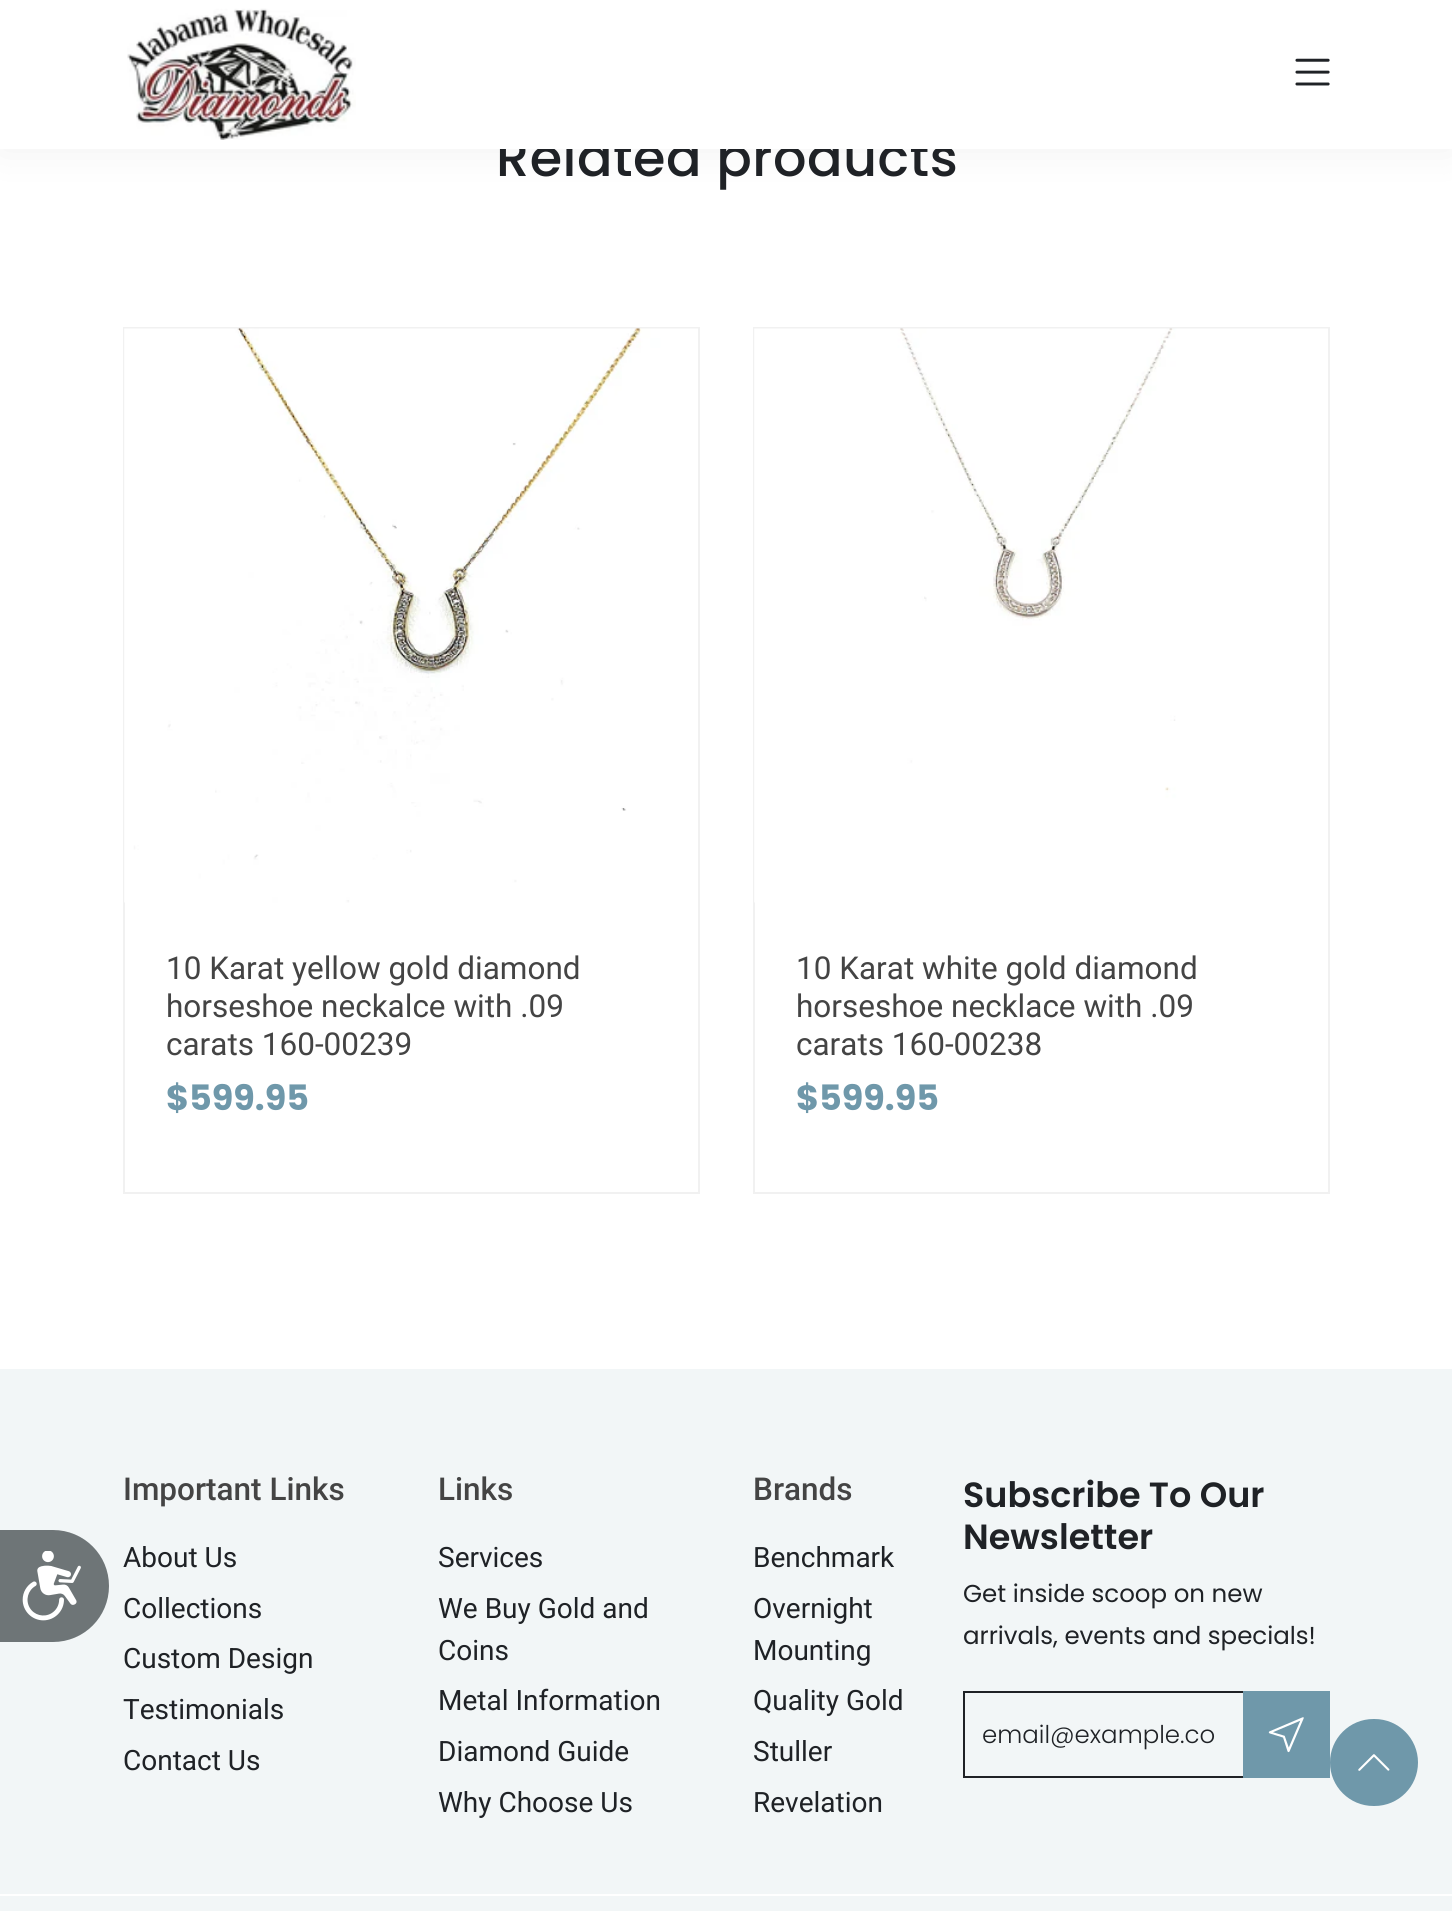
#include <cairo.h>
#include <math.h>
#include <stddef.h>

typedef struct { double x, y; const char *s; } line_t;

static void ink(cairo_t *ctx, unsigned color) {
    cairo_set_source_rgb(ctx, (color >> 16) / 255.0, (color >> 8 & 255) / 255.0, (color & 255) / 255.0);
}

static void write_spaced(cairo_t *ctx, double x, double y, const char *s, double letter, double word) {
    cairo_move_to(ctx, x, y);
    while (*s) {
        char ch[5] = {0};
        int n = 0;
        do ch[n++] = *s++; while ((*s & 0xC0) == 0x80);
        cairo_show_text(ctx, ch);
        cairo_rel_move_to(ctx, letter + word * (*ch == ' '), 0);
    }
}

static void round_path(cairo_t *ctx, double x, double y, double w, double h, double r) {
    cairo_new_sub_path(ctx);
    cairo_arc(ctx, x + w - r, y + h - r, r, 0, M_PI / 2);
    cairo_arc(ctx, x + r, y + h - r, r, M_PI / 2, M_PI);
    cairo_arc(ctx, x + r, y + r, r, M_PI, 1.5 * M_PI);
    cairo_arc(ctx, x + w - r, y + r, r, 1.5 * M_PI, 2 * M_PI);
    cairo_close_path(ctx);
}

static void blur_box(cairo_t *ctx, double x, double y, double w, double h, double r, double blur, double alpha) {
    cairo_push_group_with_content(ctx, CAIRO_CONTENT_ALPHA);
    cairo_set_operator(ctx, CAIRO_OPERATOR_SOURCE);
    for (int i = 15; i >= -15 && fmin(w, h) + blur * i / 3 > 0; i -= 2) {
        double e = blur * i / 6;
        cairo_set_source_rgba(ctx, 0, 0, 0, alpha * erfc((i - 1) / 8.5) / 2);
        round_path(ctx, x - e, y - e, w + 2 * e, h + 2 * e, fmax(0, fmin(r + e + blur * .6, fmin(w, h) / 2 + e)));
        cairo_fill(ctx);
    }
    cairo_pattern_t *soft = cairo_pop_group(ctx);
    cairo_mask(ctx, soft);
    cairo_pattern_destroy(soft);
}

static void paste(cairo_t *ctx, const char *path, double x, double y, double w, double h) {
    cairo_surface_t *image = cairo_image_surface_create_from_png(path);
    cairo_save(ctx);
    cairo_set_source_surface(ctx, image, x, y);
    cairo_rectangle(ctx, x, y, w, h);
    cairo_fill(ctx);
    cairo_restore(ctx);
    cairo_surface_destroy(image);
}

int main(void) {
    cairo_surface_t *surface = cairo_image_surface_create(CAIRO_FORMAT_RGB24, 1452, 1911);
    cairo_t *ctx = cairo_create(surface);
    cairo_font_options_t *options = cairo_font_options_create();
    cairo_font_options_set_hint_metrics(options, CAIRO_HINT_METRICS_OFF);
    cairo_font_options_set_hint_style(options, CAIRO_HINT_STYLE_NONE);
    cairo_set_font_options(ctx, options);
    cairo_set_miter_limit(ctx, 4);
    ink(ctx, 0xFFFFFF);
    cairo_paint(ctx);
    ink(ctx, 0xF2F6F7);
    cairo_rectangle(ctx, 0, 1369, 1452, 525);
    cairo_fill(ctx);
    ink(ctx, 0x6E7577);
    cairo_new_path(ctx);
    cairo_move_to(ctx, 0, 1530);
    cairo_line_to(ctx, 53, 1530);
    cairo_curve_to(ctx, 84, 1530, 109, 1555, 109, 1586);
    cairo_curve_to(ctx, 109, 1617, 84, 1642, 53, 1642);
    cairo_line_to(ctx, 0, 1642);
    cairo_close_path(ctx);
    cairo_fill(ctx);
    paste(ctx, "media/1.png", 22, 1551, 59, 70);
    ink(ctx, 0x000000);
    blur_box(ctx, 0, 0, 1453, 149, 0, 22, 0.06);
    cairo_select_font_face(ctx, "Poppins Medium", CAIRO_FONT_SLANT_NORMAL, CAIRO_FONT_WEIGHT_NORMAL);
    cairo_set_font_size(ctx, 52.5);
    ink(ctx, 0x1F2226);
    write_spaced(ctx, 496, 176, "Related products", 0.5, 0);
    ink(ctx, 0xFFFFFF);
    cairo_rectangle(ctx, 0, 0, 1452, 149);
    cairo_fill(ctx);
    paste(ctx, "media/2.png", 127, 8, 229, 132);
    paste(ctx, "media/3.png", 1295, 58, 35, 28);
    cairo_rectangle(ctx, 124, 328, 575, 865);
    ink(ctx, 0xF1F1F1);
    cairo_stroke(ctx);
    paste(ctx, "media/4.png", 124, 328, 574, 575);
    cairo_select_font_face(ctx, "Roboto", CAIRO_FONT_SLANT_NORMAL, CAIRO_FONT_WEIGHT_NORMAL);
    cairo_set_font_size(ctx, 31.5);
    ink(ctx, 0x444444);
    {
        static const line_t items[] = {
            {166, 979, "10 Karat yellow gold diamond"},
            {166, 1017, "horseshoe neckalce with .09"},
            {166, 1055, "carats 160-00239"},
        };
        for (size_t i = 0; i < sizeof items / sizeof *items; i++) {
            cairo_move_to(ctx, items[i].x, items[i].y);
            cairo_show_text(ctx, items[i].s);
        }
    }
    cairo_select_font_face(ctx, "Poppins", CAIRO_FONT_SLANT_NORMAL, CAIRO_FONT_WEIGHT_BOLD);
    cairo_set_font_size(ctx, 35);
    ink(ctx, 0x6F98AA);
    cairo_move_to(ctx, 166, 1110);
    cairo_show_text(ctx, "$599.95");
    cairo_rectangle(ctx, 754, 328, 575, 865);
    ink(ctx, 0xF1F1F1);
    cairo_stroke(ctx);
    paste(ctx, "media/5.png", 754, 328, 574, 575);
    cairo_select_font_face(ctx, "Roboto", CAIRO_FONT_SLANT_NORMAL, CAIRO_FONT_WEIGHT_NORMAL);
    cairo_set_font_size(ctx, 31.5);
    ink(ctx, 0x444444);
    {
        static const line_t items[] = {
            {796, 979, "10 Karat white gold diamond"},
            {796, 1017, "horseshoe necklace with .09"},
            {796, 1055, "carats 160-00238"},
        };
        for (size_t i = 0; i < sizeof items / sizeof *items; i++) {
            cairo_move_to(ctx, items[i].x, items[i].y);
            cairo_show_text(ctx, items[i].s);
        }
    }
    cairo_select_font_face(ctx, "Poppins", CAIRO_FONT_SLANT_NORMAL, CAIRO_FONT_WEIGHT_BOLD);
    cairo_set_font_size(ctx, 35);
    ink(ctx, 0x6F98AA);
    cairo_move_to(ctx, 796, 1110);
    cairo_show_text(ctx, "$599.95");
    cairo_select_font_face(ctx, "Roboto Medium", CAIRO_FONT_SLANT_NORMAL, CAIRO_FONT_WEIGHT_NORMAL);
    cairo_set_font_size(ctx, 31.5);
    ink(ctx, 0x444444);
    cairo_move_to(ctx, 123, 1500);
    cairo_show_text(ctx, "Important Links");
    cairo_select_font_face(ctx, "Roboto", CAIRO_FONT_SLANT_NORMAL, CAIRO_FONT_WEIGHT_NORMAL);
    cairo_set_font_size(ctx, 28);
    ink(ctx, 0x1F2226);
    {
        static const line_t items[] = {
            {123, 1567, "About Us"},
            {123, 1618, "Collections"},
            {123, 1668, "Custom Design"},
            {123, 1719, "Testimonials"},
            {123, 1770, "Contact Us"},
        };
        for (size_t i = 0; i < sizeof items / sizeof *items; i++) {
            cairo_move_to(ctx, items[i].x, items[i].y);
            cairo_show_text(ctx, items[i].s);
        }
    }
    cairo_select_font_face(ctx, "Roboto Medium", CAIRO_FONT_SLANT_NORMAL, CAIRO_FONT_WEIGHT_NORMAL);
    cairo_set_font_size(ctx, 31.5);
    ink(ctx, 0x444444);
    cairo_move_to(ctx, 438, 1500);
    cairo_show_text(ctx, "Links");
    cairo_select_font_face(ctx, "Roboto", CAIRO_FONT_SLANT_NORMAL, CAIRO_FONT_WEIGHT_NORMAL);
    cairo_set_font_size(ctx, 28);
    ink(ctx, 0x1F2226);
    {
        static const line_t items[] = {
            {438, 1567, "Services"},
            {438, 1618, "We Buy Gold and"},
            {438, 1660, "Coins"},
            {438, 1710, "Metal Information"},
            {438, 1761, "Diamond Guide"},
            {438, 1812, "Why Choose Us"},
        };
        for (size_t i = 0; i < sizeof items / sizeof *items; i++) {
            cairo_move_to(ctx, items[i].x, items[i].y);
            cairo_show_text(ctx, items[i].s);
        }
    }
    cairo_select_font_face(ctx, "Roboto Medium", CAIRO_FONT_SLANT_NORMAL, CAIRO_FONT_WEIGHT_NORMAL);
    cairo_set_font_size(ctx, 31.5);
    ink(ctx, 0x444444);
    cairo_move_to(ctx, 753, 1500);
    cairo_show_text(ctx, "Brands");
    cairo_select_font_face(ctx, "Roboto", CAIRO_FONT_SLANT_NORMAL, CAIRO_FONT_WEIGHT_NORMAL);
    cairo_set_font_size(ctx, 28);
    ink(ctx, 0x1F2226);
    {
        static const line_t items[] = {
            {753, 1567, "Benchmark"},
            {753, 1618, "Overnight"},
            {753, 1660, "Mounting"},
            {753, 1710, "Quality Gold"},
            {753, 1761, "Stuller"},
            {753, 1812, "Revelation"},
        };
        for (size_t i = 0; i < sizeof items / sizeof *items; i++) {
            cairo_move_to(ctx, items[i].x, items[i].y);
            cairo_show_text(ctx, items[i].s);
        }
    }
    cairo_select_font_face(ctx, "Poppins SemiBold", CAIRO_FONT_SLANT_NORMAL, CAIRO_FONT_WEIGHT_NORMAL);
    cairo_set_font_size(ctx, 35);
    cairo_move_to(ctx, 963, 1507);
    cairo_show_text(ctx, "Subscribe To Our");
    cairo_move_to(ctx, 963, 1549);
    cairo_show_text(ctx, "Newsletter");
    cairo_select_font_face(ctx, "Poppins", CAIRO_FONT_SLANT_NORMAL, CAIRO_FONT_WEIGHT_NORMAL);
    cairo_set_font_size(ctx, 24.5);
    cairo_move_to(ctx, 963, 1602);
    cairo_show_text(ctx, "Get inside scoop on new");
    cairo_move_to(ctx, 963, 1644);
    cairo_show_text(ctx, "arrivals, events and specials!");
    cairo_rectangle(ctx, 964, 1692, 365, 85);
    cairo_stroke(ctx);
    cairo_select_font_face(ctx, "Poppins Light", CAIRO_FONT_SLANT_NORMAL, CAIRO_FONT_WEIGHT_NORMAL);
    cairo_move_to(ctx, 982, 1743);
    cairo_show_text(ctx, "email@example.co");
    ink(ctx, 0x6F98AA);
    cairo_rectangle(ctx, 1243, 1691, 87, 87);
    cairo_fill(ctx);
    paste(ctx, "media/6.png", 1268, 1717, 36, 36);
    ink(ctx, 0xF2F6F7);
    cairo_rectangle(ctx, 0, 1896, 1452, 15);
    cairo_fill(ctx);
    ink(ctx, 0x6F98AA);
    round_path(ctx, 1330, 1719, 88, 87, 43.5);
    cairo_fill(ctx);
    paste(ctx, "media/7.png", 1358, 1754, 32, 17);
    cairo_surface_write_to_png(surface, "image.png");
    cairo_font_options_destroy(options);
    cairo_destroy(ctx);
    cairo_surface_destroy(surface);
    return 0;
}
